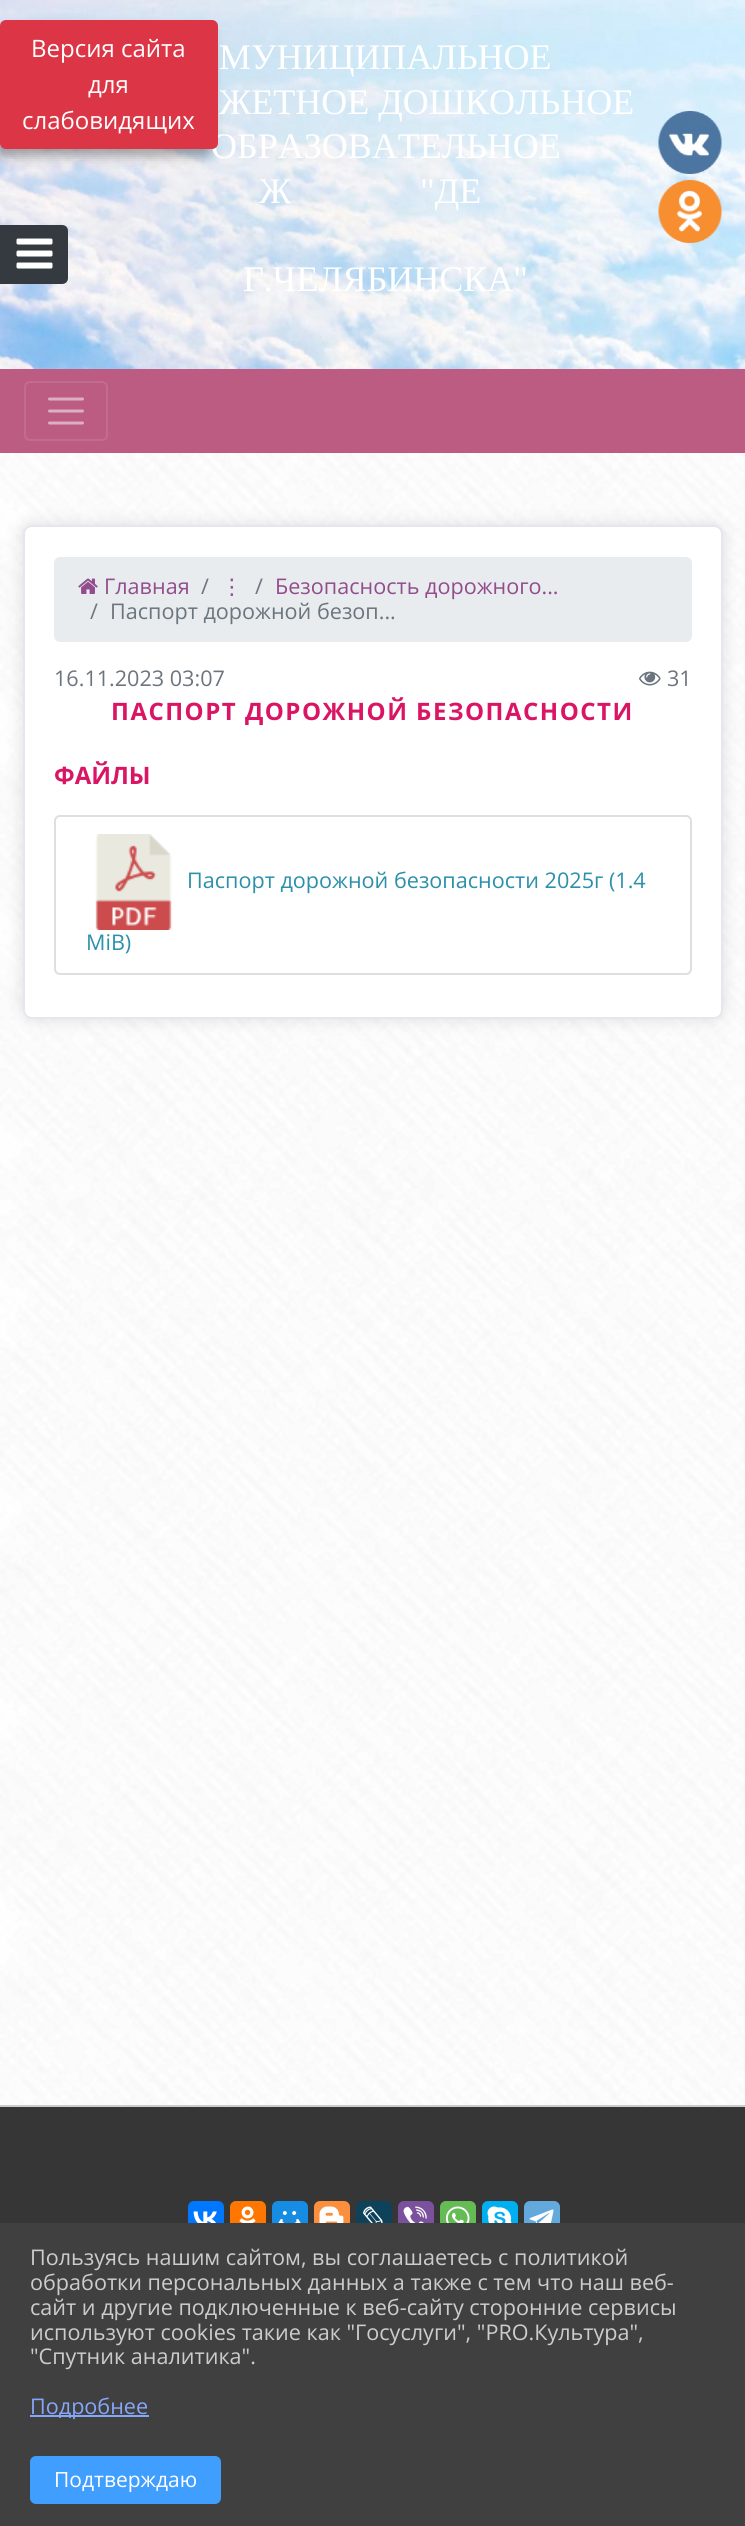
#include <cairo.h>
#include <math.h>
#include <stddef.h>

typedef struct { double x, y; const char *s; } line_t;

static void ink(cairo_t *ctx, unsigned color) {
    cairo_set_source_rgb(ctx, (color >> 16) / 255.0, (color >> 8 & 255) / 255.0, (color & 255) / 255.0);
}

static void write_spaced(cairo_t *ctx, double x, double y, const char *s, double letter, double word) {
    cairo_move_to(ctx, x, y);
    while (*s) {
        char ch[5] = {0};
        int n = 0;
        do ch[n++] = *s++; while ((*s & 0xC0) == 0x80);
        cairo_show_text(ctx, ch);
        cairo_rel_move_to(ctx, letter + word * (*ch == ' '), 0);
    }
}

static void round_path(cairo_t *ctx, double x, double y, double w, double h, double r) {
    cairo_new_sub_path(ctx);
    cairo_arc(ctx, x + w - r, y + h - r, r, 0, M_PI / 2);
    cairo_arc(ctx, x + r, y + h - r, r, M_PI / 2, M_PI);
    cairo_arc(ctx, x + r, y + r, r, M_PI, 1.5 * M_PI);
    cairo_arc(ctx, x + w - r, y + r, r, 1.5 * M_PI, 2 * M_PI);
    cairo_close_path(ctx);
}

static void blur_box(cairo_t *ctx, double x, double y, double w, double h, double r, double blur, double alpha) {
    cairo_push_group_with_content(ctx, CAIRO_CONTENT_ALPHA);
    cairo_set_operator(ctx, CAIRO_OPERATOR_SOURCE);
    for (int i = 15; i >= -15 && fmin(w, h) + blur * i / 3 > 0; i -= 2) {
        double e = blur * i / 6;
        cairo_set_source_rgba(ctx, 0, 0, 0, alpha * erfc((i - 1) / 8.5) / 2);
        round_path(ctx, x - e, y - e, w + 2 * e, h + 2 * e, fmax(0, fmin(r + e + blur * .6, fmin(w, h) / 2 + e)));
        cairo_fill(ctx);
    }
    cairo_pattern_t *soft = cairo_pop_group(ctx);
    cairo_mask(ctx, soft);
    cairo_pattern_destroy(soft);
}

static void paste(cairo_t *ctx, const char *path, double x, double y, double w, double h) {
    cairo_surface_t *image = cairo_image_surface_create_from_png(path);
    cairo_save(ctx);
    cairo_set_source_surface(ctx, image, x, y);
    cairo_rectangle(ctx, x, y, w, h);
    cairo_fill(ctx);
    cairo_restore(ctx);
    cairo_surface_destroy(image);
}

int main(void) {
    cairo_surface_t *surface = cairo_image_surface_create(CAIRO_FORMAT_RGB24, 745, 2526);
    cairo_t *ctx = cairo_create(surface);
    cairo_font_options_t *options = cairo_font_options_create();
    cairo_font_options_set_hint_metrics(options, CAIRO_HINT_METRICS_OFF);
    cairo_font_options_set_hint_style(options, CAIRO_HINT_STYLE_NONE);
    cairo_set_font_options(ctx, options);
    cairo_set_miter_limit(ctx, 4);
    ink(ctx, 0xFFFFFF);
    cairo_paint(ctx);
    paste(ctx, "media/1.png", 0, 453, 745, 1652);
    paste(ctx, "media/3.png", 0, 0, 745, 369);
    ink(ctx, 0x000000);
    blur_box(ctx, -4, 30, 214, 126, 5, 6, 0.35);
    cairo_select_font_face(ctx, "Liberation Serif", CAIRO_FONT_SLANT_NORMAL, CAIRO_FONT_WEIGHT_NORMAL);
    cairo_set_font_size(ctx, 36);
    ink(ctx, 0xFFFFFF);
    cairo_move_to(ctx, 211, 158);
    cairo_show_text(ctx, "ОБРАЗОВАТЕЛЬНОЕ");
    ink(ctx, 0xDC3545);
    round_path(ctx, 1, 21, 216, 127, 5);
    cairo_fill_preserve(ctx);
    cairo_stroke(ctx);
    cairo_select_font_face(ctx, "Open Sans", CAIRO_FONT_SLANT_NORMAL, CAIRO_FONT_WEIGHT_NORMAL);
    cairo_set_font_size(ctx, 24);
    ink(ctx, 0xFFFFFF);
    {
        static const line_t items[] = {
            {31, 57, "Версия сайта"},
            {88, 93, "для"},
            {22, 129, "слабовидящих"},
        };
        for (size_t i = 0; i < sizeof items / sizeof *items; i++) {
            cairo_move_to(ctx, items[i].x, items[i].y);
            cairo_show_text(ctx, items[i].s);
        }
    }
    ink(ctx, 0x343A40);
    cairo_new_path(ctx);
    cairo_move_to(ctx, 1, 226);
    cairo_line_to(ctx, 62, 226);
    cairo_curve_to(ctx, 65, 226, 67, 228, 67, 231);
    cairo_line_to(ctx, 67, 278);
    cairo_curve_to(ctx, 67, 281, 65, 283, 62, 283);
    cairo_line_to(ctx, 1, 283);
    cairo_close_path(ctx);
    cairo_fill_preserve(ctx);
    cairo_stroke(ctx);
    paste(ctx, "media/2.png", 16, 238, 37, 31);
    cairo_select_font_face(ctx, "Liberation Serif", CAIRO_FONT_SLANT_NORMAL, CAIRO_FONT_WEIGHT_NORMAL);
    cairo_set_font_size(ctx, 36);
    ink(ctx, 0xFFFFFF);
    {
        static const line_t items[] = {
            {219, 69, "МУНИЦИПАЛЬНОЕ"},
            {219, 114, "ЖЕТНОЕ ДОШКОЛЬНОЕ"},
            {259, 203, "Ж"},
            {420, 203, "\"ДЕ"},
            {243, 291, "Г.ЧЕЛЯБИНСКА\""},
        };
        for (size_t i = 0; i < sizeof items / sizeof *items; i++) {
            cairo_move_to(ctx, items[i].x, items[i].y);
            cairo_show_text(ctx, items[i].s);
        }
    }
    paste(ctx, "media/4.png", 658, 111, 64, 63);
    paste(ctx, "media/5.png", 658, 180, 64, 63);
    ink(ctx, 0xBC5C83);
    cairo_rectangle(ctx, 0, 369, 745, 84);
    cairo_fill(ctx);
    round_path(ctx, 25, 382, 82, 58, 5);
    ink(ctx, 0xC36C8F);
    cairo_stroke(ctx);
    cairo_new_path(ctx);
    cairo_move_to(ctx, 49.5, 399);
    cairo_line_to(ctx, 82.5, 399);
    cairo_move_to(ctx, 49.5, 411);
    cairo_line_to(ctx, 82.5, 411);
    cairo_move_to(ctx, 49.5, 423);
    cairo_line_to(ctx, 82.5, 423);
    ink(ctx, 0xDEAEC1);
    cairo_set_line_width(ctx, 3);
    cairo_set_line_cap(ctx, CAIRO_LINE_CAP_ROUND);
    cairo_stroke(ctx);
    ink(ctx, 0x000000);
    blur_box(ctx, 23, 525, 700, 494, 9, 9, 0.12);
    ink(ctx, 0xFFFFFF);
    round_path(ctx, 24, 526, 698, 492, 8);
    cairo_fill_preserve(ctx);
    ink(ctx, 0xE4E7ED);
    cairo_set_line_width(ctx, 2);
    cairo_set_line_cap(ctx, CAIRO_LINE_CAP_BUTT);
    cairo_stroke(ctx);
    ink(ctx, 0xE9ECEF);
    round_path(ctx, 54, 557, 638, 85, 6);
    cairo_fill(ctx);
    paste(ctx, "media/6.png", 78, 578, 20, 16);
    cairo_select_font_face(ctx, "Open Sans", CAIRO_FONT_SLANT_NORMAL, CAIRO_FONT_WEIGHT_NORMAL);
    cairo_set_font_size(ctx, 21.6);
    ink(ctx, 0x914D8C);
    cairo_move_to(ctx, 104, 594);
    cairo_show_text(ctx, "Главная");
    ink(ctx, 0x6C757D);
    cairo_move_to(ctx, 201, 594);
    cairo_show_text(ctx, "/");
    cairo_select_font_face(ctx, "DejaVu Sans", CAIRO_FONT_SLANT_NORMAL, CAIRO_FONT_WEIGHT_NORMAL);
    ink(ctx, 0x914D8C);
    cairo_move_to(ctx, 221, 594);
    cairo_show_text(ctx, "⋮");
    cairo_select_font_face(ctx, "Open Sans", CAIRO_FONT_SLANT_NORMAL, CAIRO_FONT_WEIGHT_NORMAL);
    ink(ctx, 0x6C757D);
    cairo_move_to(ctx, 255, 594);
    cairo_show_text(ctx, "/");
    ink(ctx, 0x914D8C);
    cairo_move_to(ctx, 275, 594);
    cairo_show_text(ctx, "Безопасность дорожного...");
    ink(ctx, 0x6C757D);
    {
        static const line_t items[] = {
            {90, 619, "/"},
            {110, 619, "Паспорт дорожной безоп..."},
            {54, 686, "16.11.2023 03:07"},
        };
        for (size_t i = 0; i < sizeof items / sizeof *items; i++) {
            cairo_move_to(ctx, items[i].x, items[i].y);
            cairo_show_text(ctx, items[i].s);
        }
    }
    paste(ctx, "media/7.png", 639, 671, 22, 15);
    cairo_move_to(ctx, 667, 686);
    cairo_show_text(ctx, "31");
    cairo_select_font_face(ctx, "Open Sans", CAIRO_FONT_SLANT_NORMAL, CAIRO_FONT_WEIGHT_BOLD);
    cairo_set_font_size(ctx, 24);
    ink(ctx, 0xDA1564);
    write_spaced(ctx, 111, 720, "ПАСПОРТ ДОРОЖНОЙ БЕЗОПАСНОСТИ", 1.5, 0);
    cairo_move_to(ctx, 54, 784);
    cairo_show_text(ctx, "ФАЙЛЫ");
    round_path(ctx, 55, 816, 636, 158, 5);
    ink(ctx, 0xDFDFDF);
    cairo_stroke(ctx);
    paste(ctx, "media/8.png", 95, 834, 77, 96);
    cairo_select_font_face(ctx, "Open Sans", CAIRO_FONT_SLANT_NORMAL, CAIRO_FONT_WEIGHT_NORMAL);
    cairo_set_font_size(ctx, 21.6);
    ink(ctx, 0x2C90AA);
    cairo_move_to(ctx, 187, 888);
    cairo_show_text(ctx, "Паспорт дорожной безопасности 2025г (1.4");
    cairo_move_to(ctx, 86, 950);
    cairo_show_text(ctx, "MiB)");
    ink(ctx, 0x373636);
    cairo_rectangle(ctx, 0, 2107, 745, 116);
    cairo_fill(ctx);
    ink(ctx, 0xCCCCCC);
    cairo_rectangle(ctx, 0, 2105, 745, 2);
    cairo_fill(ctx);
    ink(ctx, 0x0077FF);
    round_path(ctx, 188, 2201, 36, 36, 6);
    cairo_fill(ctx);
    paste(ctx, "media/9.png", 193, 2211, 24, 12);
    ink(ctx, 0xFF7700);
    round_path(ctx, 230, 2201, 36, 36, 6);
    cairo_fill(ctx);
    paste(ctx, "media/10.png", 239, 2206, 17, 17);
    ink(ctx, 0x168DE2);
    round_path(ctx, 272, 2201, 36, 36, 6);
    cairo_fill(ctx);
    paste(ctx, "media/11.png", 278, 2211, 23, 12);
    ink(ctx, 0xFB8F3D);
    round_path(ctx, 314, 2201, 36, 36, 6);
    cairo_fill(ctx);
    paste(ctx, "media/12.png", 319, 2206, 25, 17);
    ink(ctx, 0x0D425A);
    round_path(ctx, 356, 2201, 36, 36, 6);
    cairo_fill(ctx);
    paste(ctx, "media/13.png", 363, 2206, 20, 17);
    ink(ctx, 0x7B519D);
    round_path(ctx, 398, 2201, 36, 36, 6);
    cairo_fill(ctx);
    paste(ctx, "media/14.png", 403, 2206, 24, 17);
    ink(ctx, 0x65BC54);
    round_path(ctx, 440, 2201, 36, 36, 6);
    cairo_fill(ctx);
    paste(ctx, "media/15.png", 445, 2206, 25, 17);
    ink(ctx, 0x00AFF0);
    round_path(ctx, 482, 2201, 36, 36, 6);
    cairo_fill(ctx);
    paste(ctx, "media/16.png", 487, 2206, 25, 17);
    ink(ctx, 0x64A9DC);
    round_path(ctx, 524, 2201, 36, 36, 6);
    cairo_fill(ctx);
    paste(ctx, "media/17.png", 529, 2209, 25, 14);
    ink(ctx, 0x404040);
    cairo_rectangle(ctx, 0, 2223, 745, 303);
    cairo_fill(ctx);
    ink(ctx, 0xCCCCCC);
    {
        static const line_t items[] = {
            {30, 2265, "Пользуясь нашим сайтом, вы соглашаетесь с политикой"},
            {30, 2290, "обработки персональных данных а также с тем что наш веб-"},
            {30, 2315, "сайт и другие подключенные к веб-сайту сторонние сервисы"},
            {30, 2340, "используют cookies такие как \"Госуслуги\", \"PRO.Культура\","},
            {30, 2364, "\"Спутник аналитика\"."},
        };
        for (size_t i = 0; i < sizeof items / sizeof *items; i++) {
            cairo_move_to(ctx, items[i].x, items[i].y);
            cairo_show_text(ctx, items[i].s);
        }
    }
    ink(ctx, 0x85A6F9);
    cairo_rectangle(ctx, 30, 2415, 119, 2);
    cairo_fill(ctx);
    cairo_move_to(ctx, 30, 2414);
    cairo_show_text(ctx, "Подробнее");
    ink(ctx, 0x409EFF);
    round_path(ctx, 31, 2457, 189, 46, 5);
    cairo_fill_preserve(ctx);
    cairo_stroke(ctx);
    cairo_set_font_size(ctx, 21);
    ink(ctx, 0xFFFFFF);
    cairo_move_to(ctx, 54, 2487);
    cairo_show_text(ctx, "Подтверждаю");
    cairo_surface_write_to_png(surface, "image.png");
    cairo_font_options_destroy(options);
    cairo_destroy(ctx);
    cairo_surface_destroy(surface);
    return 0;
}
